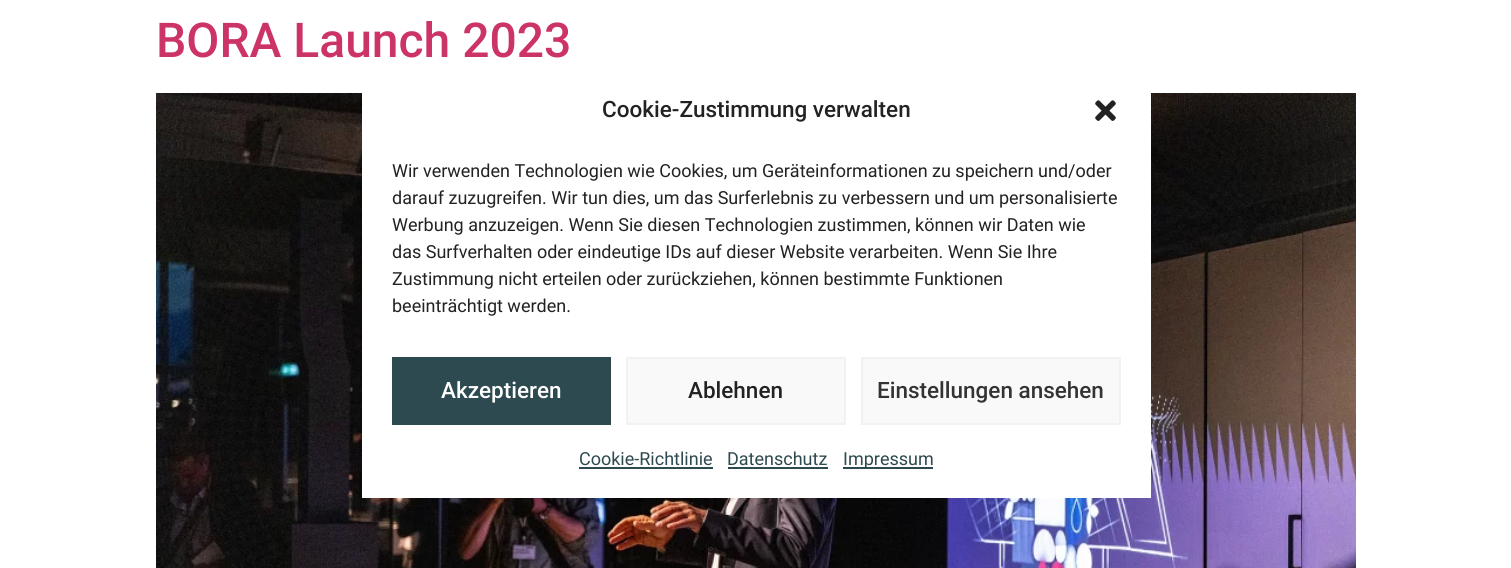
#include <cairo.h>
#include <math.h>
#include <stddef.h>

typedef struct { double x, y; const char *s; } line_t;

static void ink(cairo_t *ctx, unsigned color) {
    cairo_set_source_rgb(ctx, (color >> 16) / 255.0, (color >> 8 & 255) / 255.0, (color & 255) / 255.0);
}

static void paste(cairo_t *ctx, const char *path, double x, double y, double w, double h) {
    cairo_surface_t *image = cairo_image_surface_create_from_png(path);
    cairo_save(ctx);
    cairo_set_source_surface(ctx, image, x, y);
    cairo_rectangle(ctx, x, y, w, h);
    cairo_fill(ctx);
    cairo_restore(ctx);
    cairo_surface_destroy(image);
}

int main(void) {
    cairo_surface_t *surface = cairo_image_surface_create(CAIRO_FORMAT_RGB24, 1511, 568);
    cairo_t *ctx = cairo_create(surface);
    cairo_font_options_t *options = cairo_font_options_create();
    cairo_font_options_set_hint_metrics(options, CAIRO_HINT_METRICS_OFF);
    cairo_font_options_set_hint_style(options, CAIRO_HINT_STYLE_NONE);
    cairo_set_font_options(ctx, options);
    cairo_set_miter_limit(ctx, 4);
    ink(ctx, 0xFFFFFF);
    cairo_paint(ctx);
    cairo_select_font_face(ctx, "Roboto Medium", CAIRO_FONT_SLANT_NORMAL, CAIRO_FONT_WEIGHT_NORMAL);
    cairo_set_font_size(ctx, 48);
    ink(ctx, 0xCC3366);
    cairo_move_to(ctx, 156, 57);
    cairo_show_text(ctx, "BORA Launch 2023");
    paste(ctx, "media/1.png", 156, 93, 1200, 475);
    ink(ctx, 0xFFFFFF);
    cairo_rectangle(ctx, 362, 93, 789, 405);
    cairo_fill(ctx);
    cairo_set_font_size(ctx, 22.5);
    ink(ctx, 0x222222);
    cairo_move_to(ctx, 602, 117);
    cairo_show_text(ctx, "Cookie-Zustimmung verwalten");
    paste(ctx, "media/2.png", 1095, 100, 21, 21);
    cairo_select_font_face(ctx, "Roboto", CAIRO_FONT_SLANT_NORMAL, CAIRO_FONT_WEIGHT_NORMAL);
    cairo_set_font_size(ctx, 18);
    {
        static const line_t items[] = {
            {392, 177, "Wir verwenden Technologien wie Cookies, um Geräteinformationen zu speichern und/oder"},
            {392, 204, "darauf zuzugreifen. Wir tun dies, um das Surferlebnis zu verbessern und um personalisierte"},
            {392, 231, "Werbung anzuzeigen. Wenn Sie diesen Technologien zustimmen, können wir Daten wie"},
            {392, 258, "das Surfverhalten oder eindeutige IDs auf dieser Website verarbeiten. Wenn Sie Ihre"},
            {392, 285, "Zustimmung nicht erteilen oder zurückziehen, können bestimmte Funktionen"},
            {392, 312, "beeinträchtigt werden."},
        };
        for (size_t i = 0; i < sizeof items / sizeof *items; i++) {
            cairo_move_to(ctx, items[i].x, items[i].y);
            cairo_show_text(ctx, items[i].s);
        }
    }
    ink(ctx, 0x2D4A50);
    cairo_rectangle(ctx, 392, 357, 219, 68);
    cairo_fill(ctx);
    cairo_select_font_face(ctx, "Roboto Medium", CAIRO_FONT_SLANT_NORMAL, CAIRO_FONT_WEIGHT_NORMAL);
    cairo_set_font_size(ctx, 22.5);
    ink(ctx, 0xFFFFFF);
    cairo_move_to(ctx, 441, 398);
    cairo_show_text(ctx, "Akzeptieren");
    ink(ctx, 0xF9F9F9);
    cairo_rectangle(ctx, 627, 358, 218, 66);
    cairo_fill_preserve(ctx);
    ink(ctx, 0xF2F2F2);
    cairo_stroke(ctx);
    ink(ctx, 0x222222);
    cairo_move_to(ctx, 688, 398);
    cairo_show_text(ctx, "Ablehnen");
    ink(ctx, 0xF9F9F9);
    cairo_rectangle(ctx, 862, 358, 258, 66);
    cairo_fill_preserve(ctx);
    ink(ctx, 0xF2F2F2);
    cairo_stroke(ctx);
    ink(ctx, 0x333333);
    cairo_move_to(ctx, 877, 398);
    cairo_show_text(ctx, "Einstellungen ansehen");
    cairo_select_font_face(ctx, "Roboto", CAIRO_FONT_SLANT_NORMAL, CAIRO_FONT_WEIGHT_NORMAL);
    cairo_set_font_size(ctx, 18);
    ink(ctx, 0x2D4A50);
    cairo_move_to(ctx, 579, 465);
    cairo_show_text(ctx, "Cookie-Richtlinie");
    cairo_rectangle(ctx, 579, 467, 134, 2);
    cairo_fill(ctx);
    cairo_move_to(ctx, 727, 465);
    cairo_show_text(ctx, "Datenschutz");
    cairo_rectangle(ctx, 728, 467, 100, 2);
    cairo_fill(ctx);
    cairo_rectangle(ctx, 843, 467, 90, 2);
    cairo_fill(ctx);
    cairo_move_to(ctx, 843, 465);
    cairo_show_text(ctx, "Impressum");
    cairo_surface_write_to_png(surface, "image.png");
    cairo_font_options_destroy(options);
    cairo_destroy(ctx);
    cairo_surface_destroy(surface);
    return 0;
}
